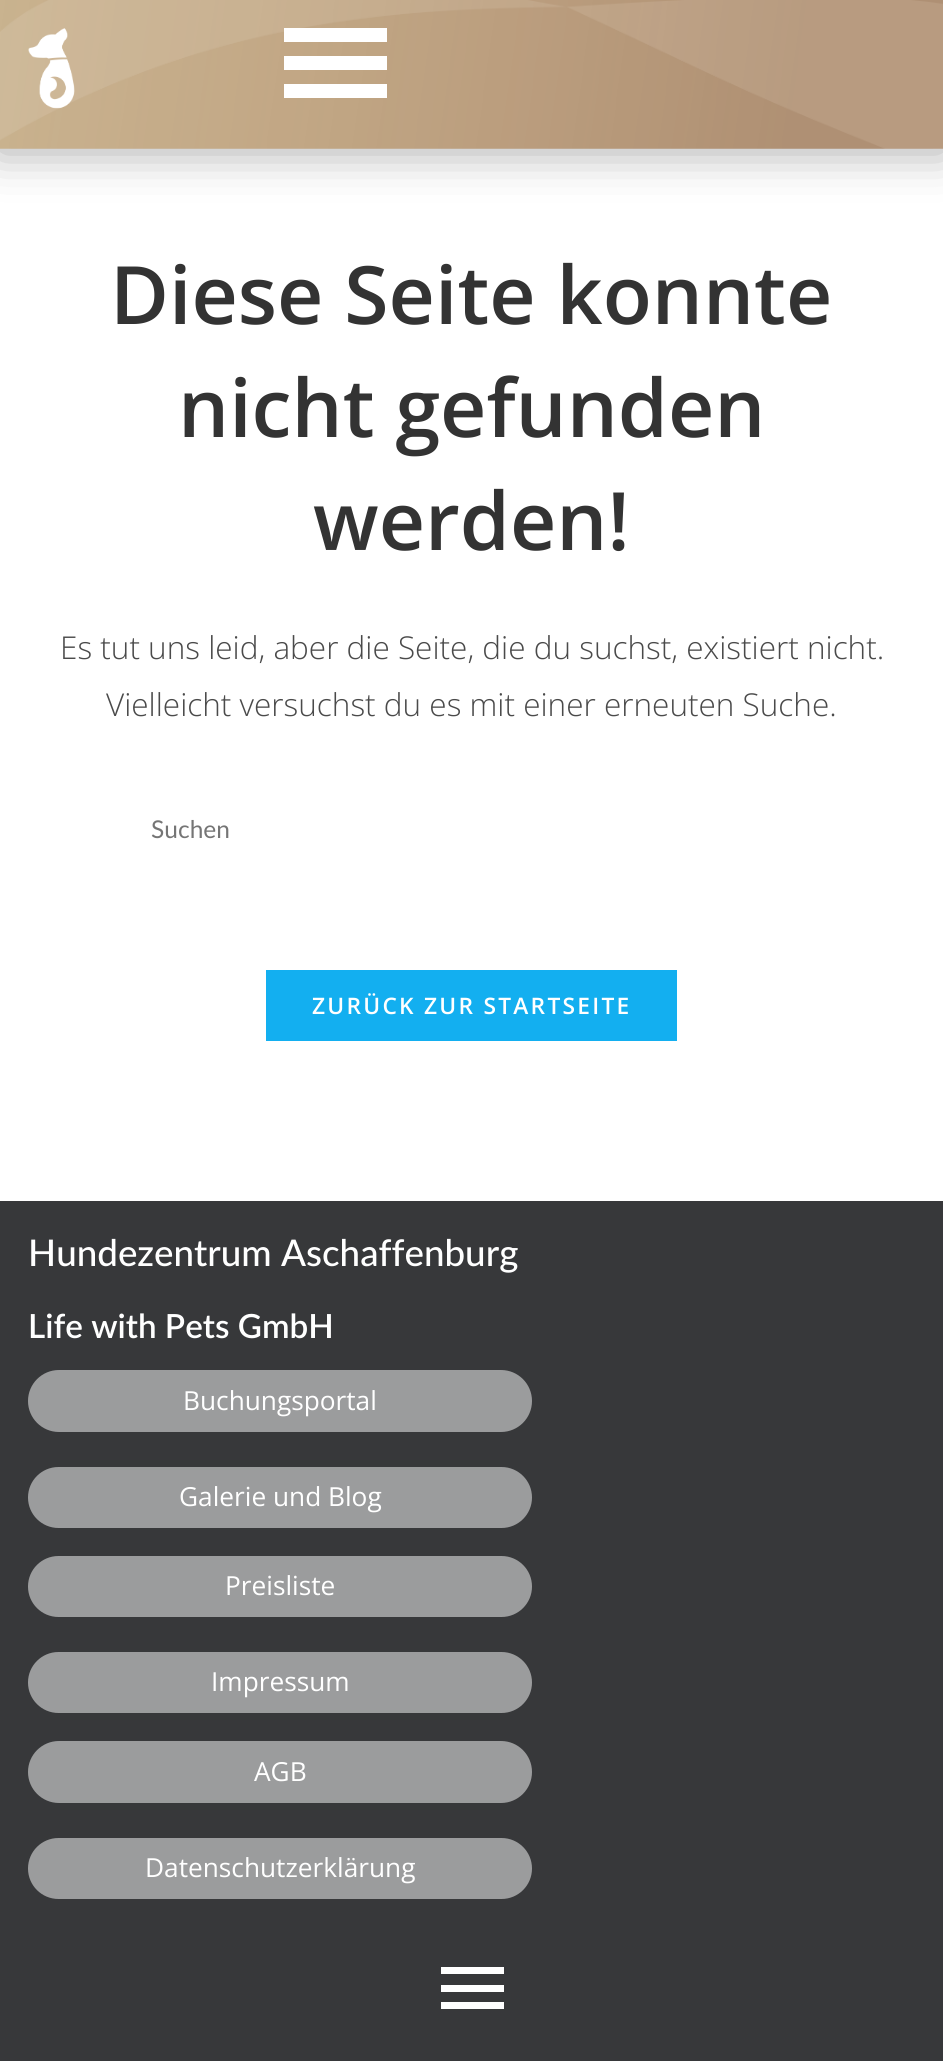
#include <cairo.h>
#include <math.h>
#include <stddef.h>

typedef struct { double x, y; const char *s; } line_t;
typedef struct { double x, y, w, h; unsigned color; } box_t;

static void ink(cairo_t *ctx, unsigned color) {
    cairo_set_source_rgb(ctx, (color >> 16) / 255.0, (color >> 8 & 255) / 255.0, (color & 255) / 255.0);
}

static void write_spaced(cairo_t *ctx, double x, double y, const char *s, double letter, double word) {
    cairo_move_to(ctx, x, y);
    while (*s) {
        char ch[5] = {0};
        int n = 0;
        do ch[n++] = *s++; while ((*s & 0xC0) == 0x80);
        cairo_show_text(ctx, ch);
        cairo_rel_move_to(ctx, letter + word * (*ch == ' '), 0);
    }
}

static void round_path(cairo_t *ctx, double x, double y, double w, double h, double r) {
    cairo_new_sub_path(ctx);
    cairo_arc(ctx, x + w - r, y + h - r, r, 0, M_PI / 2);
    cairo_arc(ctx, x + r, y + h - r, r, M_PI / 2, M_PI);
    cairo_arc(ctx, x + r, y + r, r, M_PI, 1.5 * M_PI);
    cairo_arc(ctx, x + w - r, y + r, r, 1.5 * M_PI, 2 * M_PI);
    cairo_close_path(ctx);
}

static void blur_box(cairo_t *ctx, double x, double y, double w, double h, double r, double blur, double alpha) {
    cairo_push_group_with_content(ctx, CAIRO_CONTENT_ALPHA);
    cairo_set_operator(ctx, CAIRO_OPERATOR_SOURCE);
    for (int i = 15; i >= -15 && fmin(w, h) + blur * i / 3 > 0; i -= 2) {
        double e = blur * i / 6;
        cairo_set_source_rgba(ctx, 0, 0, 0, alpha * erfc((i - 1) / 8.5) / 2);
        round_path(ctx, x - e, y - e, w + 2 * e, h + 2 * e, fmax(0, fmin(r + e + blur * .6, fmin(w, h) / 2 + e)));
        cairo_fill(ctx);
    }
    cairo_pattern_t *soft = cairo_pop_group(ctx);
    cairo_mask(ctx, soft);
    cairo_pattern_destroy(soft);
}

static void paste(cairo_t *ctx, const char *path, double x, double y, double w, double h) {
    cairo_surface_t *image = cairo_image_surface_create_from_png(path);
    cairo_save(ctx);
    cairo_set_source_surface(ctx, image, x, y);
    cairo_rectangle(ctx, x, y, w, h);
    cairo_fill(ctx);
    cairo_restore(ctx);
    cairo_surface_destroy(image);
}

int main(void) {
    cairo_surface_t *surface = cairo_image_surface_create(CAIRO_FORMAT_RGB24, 943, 2061);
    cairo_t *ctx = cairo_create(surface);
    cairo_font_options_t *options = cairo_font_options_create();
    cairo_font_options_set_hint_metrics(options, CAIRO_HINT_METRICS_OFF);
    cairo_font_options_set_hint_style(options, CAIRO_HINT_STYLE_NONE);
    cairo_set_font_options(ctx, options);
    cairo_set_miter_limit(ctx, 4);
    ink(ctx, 0xFFFFFF);
    cairo_paint(ctx);
    ink(ctx, 0x000000);
    blur_box(ctx, -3, -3, 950, 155, 0, 23.5, 0.33);
    paste(ctx, "media/1.png", 0, 0, 943, 149);
    paste(ctx, "media/2.png", 28, 28, 47, 81);
    {
        static const box_t items[] = {
            {284, 28, 103, 14, 0xFFFFFF},
            {284, 56, 103, 14, 0xFFFFFF},
            {284, 84, 103, 14, 0xFFFFFF},
        };
        for (size_t i = 0; i < sizeof items / sizeof *items; i++) {
            ink(ctx, items[i].color);
            cairo_rectangle(ctx, items[i].x, items[i].y, items[i].w, items[i].h);
            cairo_fill(ctx);
        }
    }
    cairo_select_font_face(ctx, "Open Sans SemiBold", CAIRO_FONT_SLANT_NORMAL, CAIRO_FONT_WEIGHT_NORMAL);
    cairo_set_font_size(ctx, 80.5);
    ink(ctx, 0x333333);
    {
        static const line_t items[] = {
            {110, 324, "Diese Seite konnte"},
            {178, 437, "nicht gefunden"},
            {313, 550, "werden!"},
        };
        for (size_t i = 0; i < sizeof items / sizeof *items; i++) {
            cairo_move_to(ctx, items[i].x, items[i].y);
            cairo_show_text(ctx, items[i].s);
        }
    }
    cairo_select_font_face(ctx, "Open Sans Light", CAIRO_FONT_SLANT_NORMAL, CAIRO_FONT_WEIGHT_NORMAL);
    cairo_set_font_size(ctx, 31.5);
    ink(ctx, 0x4A4A4A);
    cairo_move_to(ctx, 60, 659);
    cairo_show_text(ctx, "Es tut uns leid, aber die Seite, die du suchst, existiert nicht.");
    cairo_move_to(ctx, 106, 716);
    cairo_show_text(ctx, "Vielleicht versuchst du es mit einer erneuten Suche.");
    cairo_select_font_face(ctx, "Lato", CAIRO_FONT_SLANT_NORMAL, CAIRO_FONT_WEIGHT_NORMAL);
    cairo_set_font_size(ctx, 24.5);
    ink(ctx, 0x757575);
    cairo_move_to(ctx, 151, 838);
    cairo_show_text(ctx, "Suchen");
    ink(ctx, 0x13AFF0);
    cairo_rectangle(ctx, 266, 970, 411, 71);
    cairo_fill(ctx);
    cairo_select_font_face(ctx, "Open Sans SemiBold", CAIRO_FONT_SLANT_NORMAL, CAIRO_FONT_WEIGHT_NORMAL);
    cairo_set_font_size(ctx, 22.75);
    ink(ctx, 0xFFFFFF);
    write_spaced(ctx, 312, 1014, "ZURÜCK ZUR STARTSEITE", 2.25, 0);
    ink(ctx, 0x37383A);
    cairo_rectangle(ctx, 0, 1201, 943, 860);
    cairo_fill(ctx);
    cairo_select_font_face(ctx, "Lato Medium", CAIRO_FONT_SLANT_NORMAL, CAIRO_FONT_WEIGHT_NORMAL);
    cairo_set_font_size(ctx, 36.75);
    ink(ctx, 0xFFFFFF);
    cairo_move_to(ctx, 28, 1266);
    cairo_show_text(ctx, "Hundezentrum Aschaffenburg");
    cairo_select_font_face(ctx, "Lato SemiBold", CAIRO_FONT_SLANT_NORMAL, CAIRO_FONT_WEIGHT_NORMAL);
    cairo_set_font_size(ctx, 33.25);
    cairo_move_to(ctx, 28, 1338);
    cairo_show_text(ctx, "Life with Pets GmbH");
    ink(ctx, 0x9B9C9D);
    round_path(ctx, 28, 1370, 504, 62, 31);
    cairo_fill(ctx);
    cairo_select_font_face(ctx, "Open Sans", CAIRO_FONT_SLANT_NORMAL, CAIRO_FONT_WEIGHT_NORMAL);
    cairo_set_font_size(ctx, 26.25);
    ink(ctx, 0xFFFFFF);
    cairo_move_to(ctx, 183, 1410);
    cairo_show_text(ctx, "Buchungsportal");
    ink(ctx, 0x9B9C9D);
    round_path(ctx, 28, 1467, 504, 61, 30.5);
    cairo_fill(ctx);
    ink(ctx, 0xFFFFFF);
    cairo_move_to(ctx, 179, 1506);
    cairo_show_text(ctx, "Galerie und Blog");
    ink(ctx, 0x9B9C9D);
    round_path(ctx, 28, 1556, 504, 61, 30.5);
    cairo_fill(ctx);
    ink(ctx, 0xFFFFFF);
    cairo_move_to(ctx, 225, 1595);
    cairo_show_text(ctx, "Preisliste");
    ink(ctx, 0x9B9C9D);
    round_path(ctx, 28, 1652, 504, 61, 30.5);
    cairo_fill(ctx);
    ink(ctx, 0xFFFFFF);
    cairo_move_to(ctx, 211, 1691);
    cairo_show_text(ctx, "Impressum");
    ink(ctx, 0x9B9C9D);
    round_path(ctx, 28, 1741, 504, 62, 31);
    cairo_fill(ctx);
    ink(ctx, 0xFFFFFF);
    cairo_move_to(ctx, 254, 1781);
    cairo_show_text(ctx, "AGB");
    ink(ctx, 0x9B9C9D);
    round_path(ctx, 28, 1838, 504, 61, 30.5);
    cairo_fill(ctx);
    ink(ctx, 0xFFFFFF);
    cairo_move_to(ctx, 145, 1877);
    cairo_show_text(ctx, "Datenschutzerklärung");
    {
        static const box_t items[] = {
            {441, 1967, 63, 7, 0xFFFFFF},
            {441, 1985, 63, 7, 0xFFFFFF},
            {441, 2002, 63, 7, 0xFFFFFF},
        };
        for (size_t i = 0; i < sizeof items / sizeof *items; i++) {
            ink(ctx, items[i].color);
            cairo_rectangle(ctx, items[i].x, items[i].y, items[i].w, items[i].h);
            cairo_fill(ctx);
        }
    }
    cairo_surface_write_to_png(surface, "image.png");
    cairo_font_options_destroy(options);
    cairo_destroy(ctx);
    cairo_surface_destroy(surface);
    return 0;
}
